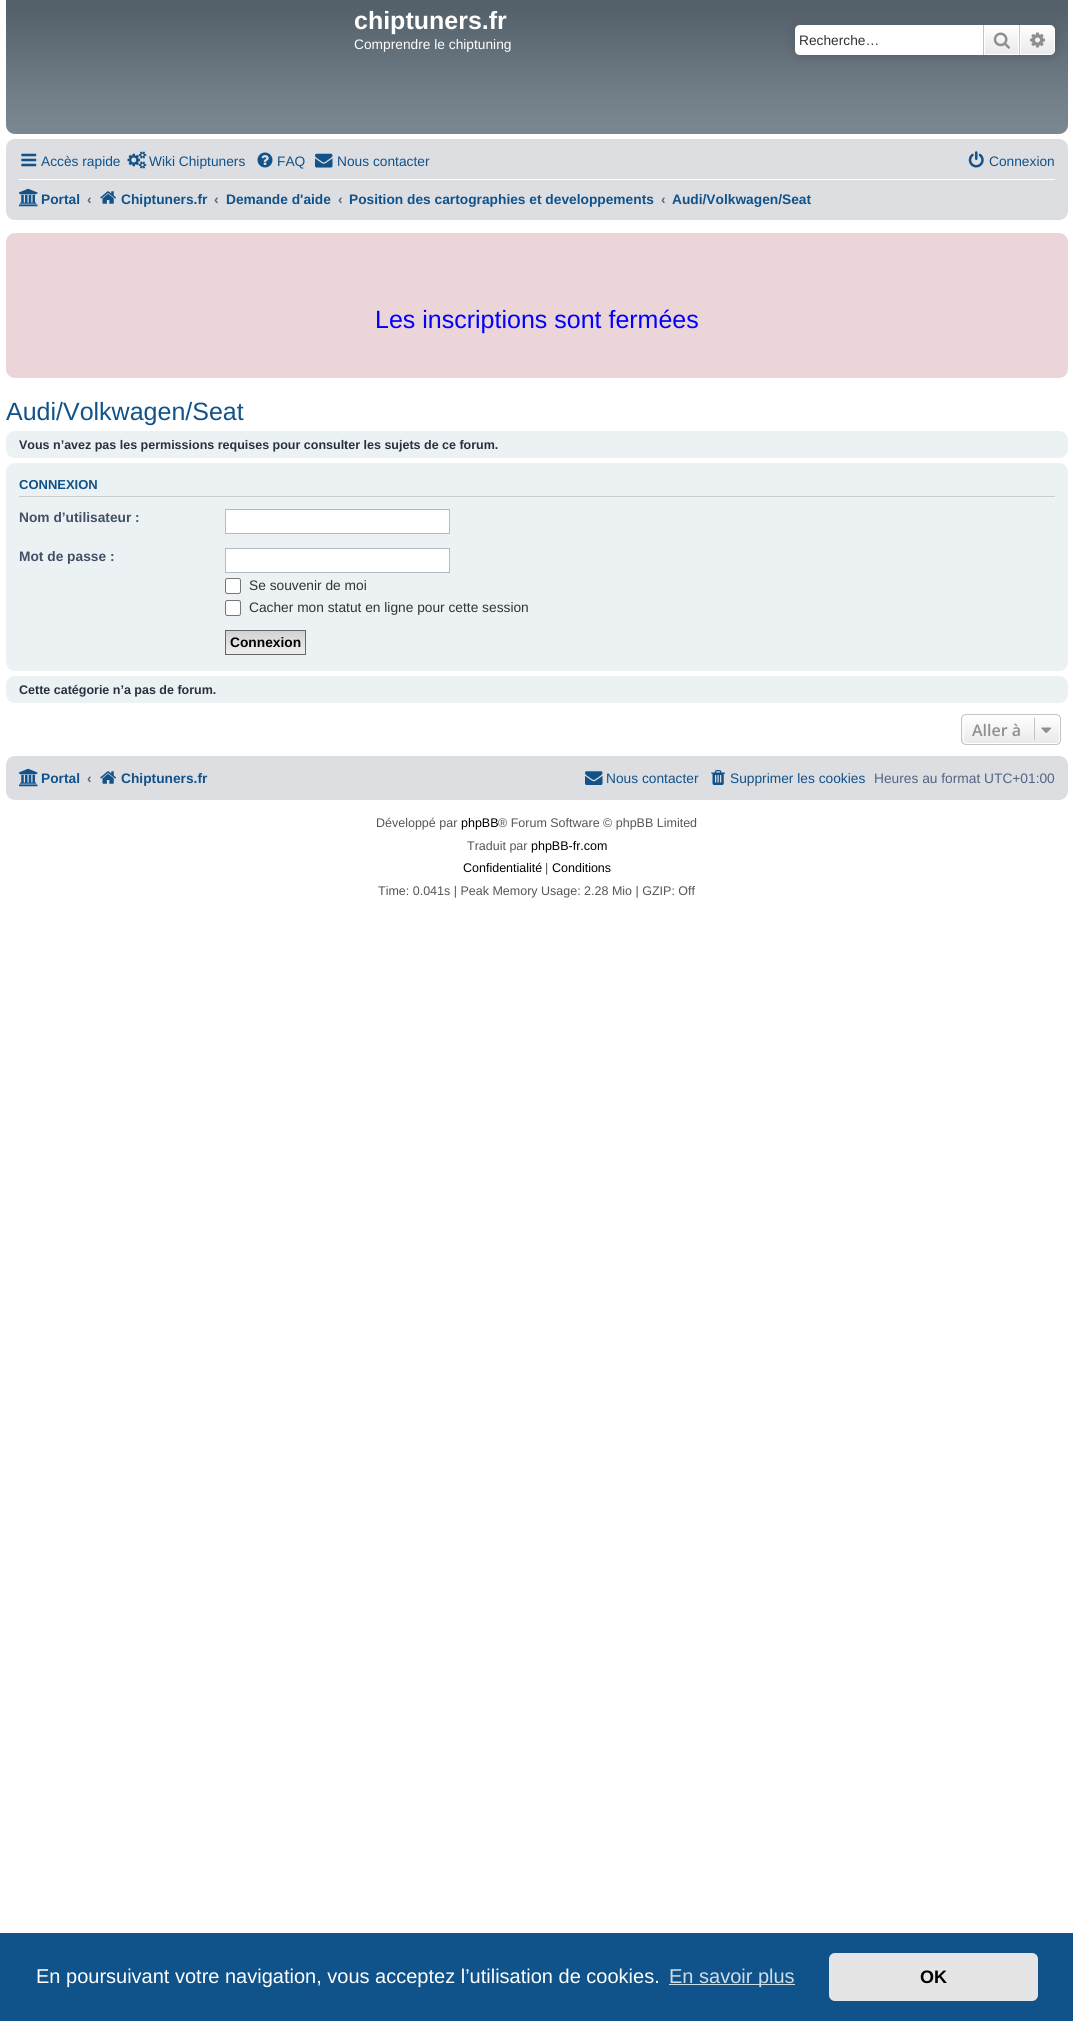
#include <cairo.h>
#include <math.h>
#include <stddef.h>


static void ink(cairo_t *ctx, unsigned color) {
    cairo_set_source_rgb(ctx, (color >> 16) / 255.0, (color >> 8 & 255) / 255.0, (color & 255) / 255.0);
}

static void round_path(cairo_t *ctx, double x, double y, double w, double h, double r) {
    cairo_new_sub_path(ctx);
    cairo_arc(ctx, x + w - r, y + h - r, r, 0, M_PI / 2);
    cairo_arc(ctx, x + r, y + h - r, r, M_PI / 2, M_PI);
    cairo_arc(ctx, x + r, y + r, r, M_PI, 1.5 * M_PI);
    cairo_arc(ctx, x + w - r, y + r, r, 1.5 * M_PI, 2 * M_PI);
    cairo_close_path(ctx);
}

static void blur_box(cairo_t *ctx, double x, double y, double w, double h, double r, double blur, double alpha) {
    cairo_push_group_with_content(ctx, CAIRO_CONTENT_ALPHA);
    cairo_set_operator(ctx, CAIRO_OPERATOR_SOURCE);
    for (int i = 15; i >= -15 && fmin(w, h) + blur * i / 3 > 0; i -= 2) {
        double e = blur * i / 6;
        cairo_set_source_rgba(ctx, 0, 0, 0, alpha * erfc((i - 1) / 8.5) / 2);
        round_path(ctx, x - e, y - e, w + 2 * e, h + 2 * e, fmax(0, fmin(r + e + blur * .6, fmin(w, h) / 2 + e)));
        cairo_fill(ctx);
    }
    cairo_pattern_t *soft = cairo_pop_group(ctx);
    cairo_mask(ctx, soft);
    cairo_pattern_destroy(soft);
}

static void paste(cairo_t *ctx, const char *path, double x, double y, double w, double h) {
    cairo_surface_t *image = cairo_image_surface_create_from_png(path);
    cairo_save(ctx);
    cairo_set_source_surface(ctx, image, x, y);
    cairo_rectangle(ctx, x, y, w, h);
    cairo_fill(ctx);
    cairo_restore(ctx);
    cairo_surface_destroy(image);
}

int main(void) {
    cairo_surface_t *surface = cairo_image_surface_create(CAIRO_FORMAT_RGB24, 1073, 2021);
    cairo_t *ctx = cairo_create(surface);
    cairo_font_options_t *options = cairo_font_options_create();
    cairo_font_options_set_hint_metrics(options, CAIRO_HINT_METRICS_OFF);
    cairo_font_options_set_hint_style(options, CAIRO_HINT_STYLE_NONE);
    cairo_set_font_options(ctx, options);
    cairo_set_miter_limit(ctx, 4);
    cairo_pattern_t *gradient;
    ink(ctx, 0xFFFFFF);
    cairo_paint(ctx);
    gradient = cairo_pattern_create_linear(537, -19, 537, 134);
    cairo_pattern_add_color_stop_rgba(gradient, 0, 0.431, 0.467, 0.498, 1);
    cairo_pattern_add_color_stop_rgba(gradient, 0.01, 0.314, 0.361, 0.396, 1);
    cairo_pattern_add_color_stop_rgba(gradient, 0.2, 0.337, 0.384, 0.42, 1);
    cairo_pattern_add_color_stop_rgba(gradient, 0.75, 0.451, 0.498, 0.533, 1);
    cairo_pattern_add_color_stop_rgba(gradient, 1, 0.486, 0.533, 0.569, 1);
    cairo_set_source(ctx, gradient);
    cairo_pattern_destroy(gradient);
    round_path(ctx, 6, -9, 1062, 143, 9);
    cairo_fill(ctx);
    cairo_select_font_face(ctx, "Liberation Sans", CAIRO_FONT_SLANT_NORMAL, CAIRO_FONT_WEIGHT_BOLD);
    cairo_set_font_size(ctx, 25);
    ink(ctx, 0xFFFFFF);
    cairo_move_to(ctx, 354, 29);
    cairo_show_text(ctx, "chiptuners.fr");
    cairo_select_font_face(ctx, "Liberation Sans", CAIRO_FONT_SLANT_NORMAL, CAIRO_FONT_WEIGHT_NORMAL);
    cairo_set_font_size(ctx, 13.75);
    cairo_move_to(ctx, 354, 49);
    cairo_show_text(ctx, "Comprendre le chiptuning");
    ink(ctx, 0x505C65);
    blur_box(ctx, 795, 25, 260, 30, 5, 6, 1);
    ink(ctx, 0xFFFFFF);
    cairo_new_path(ctx);
    cairo_move_to(ctx, 800, 25);
    cairo_line_to(ctx, 983, 25);
    cairo_line_to(ctx, 983, 55);
    cairo_line_to(ctx, 800, 55);
    cairo_curve_to(ctx, 797, 55, 795, 53, 795, 50);
    cairo_line_to(ctx, 795, 30);
    cairo_curve_to(ctx, 795, 27, 797, 25, 800, 25);
    cairo_close_path(ctx);
    cairo_fill(ctx);
    ink(ctx, 0x333333);
    cairo_move_to(ctx, 799, 45);
    cairo_show_text(ctx, "Recherche…");
    gradient = cairo_pattern_create_linear(1001, 25, 1001, 55);
    cairo_pattern_add_color_stop_rgba(gradient, 0, 1, 1, 1, 1);
    cairo_pattern_add_color_stop_rgba(gradient, 1, 0.914, 0.914, 0.914, 1);
    cairo_set_source(ctx, gradient);
    cairo_pattern_destroy(gradient);
    cairo_rectangle(ctx, 985, 26, 33, 28);
    cairo_fill(ctx);
    cairo_rectangle(ctx, 984.5, 25.5, 34, 29);
    ink(ctx, 0xFFFFFF);
    cairo_set_line_width(ctx, 1);
    cairo_stroke(ctx);
    ink(ctx, 0xC7C3BF);
    cairo_rectangle(ctx, 1019, 25, 1, 30);
    cairo_fill(ctx);
    cairo_rectangle(ctx, 983, 25, 1, 30);
    cairo_fill(ctx);
    paste(ctx, "media/1.png", 993, 32, 17, 17);
    gradient = cairo_pattern_create_linear(1038, 25, 1038, 55);
    cairo_pattern_add_color_stop_rgba(gradient, 0, 1, 1, 1, 1);
    cairo_pattern_add_color_stop_rgba(gradient, 1, 0.914, 0.914, 0.914, 1);
    cairo_set_source(ctx, gradient);
    cairo_pattern_destroy(gradient);
    cairo_new_path(ctx);
    cairo_move_to(ctx, 1020.5, 25.5);
    cairo_line_to(ctx, 1050, 25.5);
    cairo_curve_to(ctx, 1052.5, 25.5, 1054.5, 27.5, 1054.5, 30);
    cairo_line_to(ctx, 1054.5, 50);
    cairo_curve_to(ctx, 1054.5, 52.5, 1052.5, 54.5, 1050, 54.5);
    cairo_line_to(ctx, 1020.5, 54.5);
    cairo_close_path(ctx);
    cairo_fill_preserve(ctx);
    ink(ctx, 0xFFFFFF);
    cairo_stroke(ctx);
    paste(ctx, "media/2.png", 1030, 32, 15, 16);
    ink(ctx, 0xDCDEE2);
    round_path(ctx, 6, 139, 1062, 81, 9);
    cairo_fill(ctx);
    paste(ctx, "media/3.png", 21, 153, 16, 14);
    ink(ctx, 0x105289);
    cairo_move_to(ctx, 41, 166);
    cairo_show_text(ctx, "Accès rapide");
    paste(ctx, "media/4.png", 127, 151, 20, 18);
    cairo_move_to(ctx, 149, 166);
    cairo_show_text(ctx, "Wiki Chiptuners");
    paste(ctx, "media/5.png", 257, 152, 16, 16);
    cairo_move_to(ctx, 277, 166);
    cairo_show_text(ctx, "FAQ");
    paste(ctx, "media/6.png", 315, 153, 18, 15);
    cairo_move_to(ctx, 337, 166);
    cairo_show_text(ctx, "Nous contacter");
    paste(ctx, "media/7.png", 968, 151, 16, 17);
    cairo_move_to(ctx, 989, 166);
    cairo_show_text(ctx, "Connexion");
    ink(ctx, 0xFFFFFF);
    cairo_rectangle(ctx, 19, 179, 1036, 1);
    cairo_fill(ctx);
    paste(ctx, "media/8.png", 19, 188, 19, 19);
    cairo_select_font_face(ctx, "Liberation Sans", CAIRO_FONT_SLANT_NORMAL, CAIRO_FONT_WEIGHT_BOLD);
    ink(ctx, 0x105289);
    cairo_move_to(ctx, 41, 204);
    cairo_show_text(ctx, "Portal");
    ink(ctx, 0x536482);
    cairo_move_to(ctx, 87, 204);
    cairo_show_text(ctx, "‹");
    paste(ctx, "media/9.png", 100, 191, 16, 13);
    ink(ctx, 0x105289);
    cairo_move_to(ctx, 121, 204);
    cairo_show_text(ctx, "Chiptuners.fr");
    ink(ctx, 0x536482);
    cairo_move_to(ctx, 214, 204);
    cairo_show_text(ctx, "‹");
    ink(ctx, 0x105289);
    cairo_move_to(ctx, 226, 204);
    cairo_show_text(ctx, "Demande d'aide");
    ink(ctx, 0x536482);
    cairo_move_to(ctx, 338, 204);
    cairo_show_text(ctx, "‹");
    ink(ctx, 0x105289);
    cairo_move_to(ctx, 349, 204);
    cairo_show_text(ctx, "Position des cartographies et developpements");
    ink(ctx, 0x536482);
    cairo_move_to(ctx, 661, 204);
    cairo_show_text(ctx, "‹");
    ink(ctx, 0x105289);
    cairo_move_to(ctx, 672, 204);
    cairo_show_text(ctx, "Audi/Volkwagen/Seat");
    ink(ctx, 0xECD5D8);
    round_path(ctx, 6, 233, 1062, 145, 9);
    cairo_fill(ctx);
    cairo_select_font_face(ctx, "Liberation Sans", CAIRO_FONT_SLANT_NORMAL, CAIRO_FONT_WEIGHT_NORMAL);
    cairo_set_font_size(ctx, 25);
    ink(ctx, 0x0000FF);
    cairo_move_to(ctx, 375, 328);
    cairo_show_text(ctx, "Les inscriptions sont fermées");
    ink(ctx, 0x105289);
    cairo_move_to(ctx, 6, 420);
    cairo_show_text(ctx, "Audi/Volkwagen/Seat");
    ink(ctx, 0xECF1F3);
    round_path(ctx, 6, 431, 1062, 27, 9);
    cairo_fill(ctx);
    cairo_select_font_face(ctx, "Liberation Sans", CAIRO_FONT_SLANT_NORMAL, CAIRO_FONT_WEIGHT_BOLD);
    cairo_set_font_size(ctx, 12.5);
    ink(ctx, 0x28313F);
    cairo_move_to(ctx, 19, 449);
    cairo_show_text(ctx, "Vous n’avez pas les permissions requises pour consulter les sujets de ce forum.");
    ink(ctx, 0xECF1F3);
    round_path(ctx, 6, 463, 1062, 208, 9);
    cairo_fill(ctx);
    ink(ctx, 0xCCCCCC);
    cairo_rectangle(ctx, 19, 496, 1036, 1);
    cairo_fill(ctx);
    cairo_set_font_size(ctx, 13);
    ink(ctx, 0x105289);
    cairo_move_to(ctx, 19, 489);
    cairo_show_text(ctx, "CONNEXION");
    cairo_set_font_size(ctx, 13.75);
    ink(ctx, 0x425067);
    cairo_move_to(ctx, 19, 522);
    cairo_show_text(ctx, "Nom d’utilisateur :");
    ink(ctx, 0xFFFFFF);
    cairo_rectangle(ctx, 225.5, 509.5, 224, 24);
    cairo_fill_preserve(ctx);
    ink(ctx, 0xB4BAC0);
    cairo_stroke(ctx);
    ink(ctx, 0x425067);
    cairo_move_to(ctx, 19, 561);
    cairo_show_text(ctx, "Mot de passe :");
    ink(ctx, 0xFFFFFF);
    cairo_rectangle(ctx, 225.5, 548.5, 224, 24);
    cairo_fill_preserve(ctx);
    ink(ctx, 0xB4BAC0);
    cairo_stroke(ctx);
    ink(ctx, 0xFFFFFF);
    round_path(ctx, 225.5, 578.5, 15, 15, 2);
    cairo_fill_preserve(ctx);
    ink(ctx, 0x767676);
    cairo_stroke(ctx);
    cairo_select_font_face(ctx, "Liberation Sans", CAIRO_FONT_SLANT_NORMAL, CAIRO_FONT_WEIGHT_NORMAL);
    ink(ctx, 0x333333);
    cairo_move_to(ctx, 249, 590);
    cairo_show_text(ctx, "Se souvenir de moi");
    ink(ctx, 0xFFFFFF);
    round_path(ctx, 225.5, 600.5, 15, 15, 2);
    cairo_fill_preserve(ctx);
    ink(ctx, 0x767676);
    cairo_stroke(ctx);
    ink(ctx, 0x333333);
    cairo_move_to(ctx, 249, 612);
    cairo_show_text(ctx, "Cacher mon statut en ligne pour cette session");
    gradient = cairo_pattern_create_linear(266, 631, 266, 654);
    cairo_pattern_add_color_stop_rgba(gradient, 0, 0.824, 0.824, 0.824, 1);
    cairo_pattern_add_color_stop_rgba(gradient, 1, 0.937, 0.937, 0.937, 1);
    cairo_set_source(ctx, gradient);
    cairo_pattern_destroy(gradient);
    cairo_rectangle(ctx, 226, 631, 79, 23);
    cairo_fill(ctx);
    cairo_rectangle(ctx, 225.5, 630.5, 80, 24);
    ink(ctx, 0x666666);
    cairo_stroke(ctx);
    cairo_select_font_face(ctx, "Liberation Sans", CAIRO_FONT_SLANT_NORMAL, CAIRO_FONT_WEIGHT_BOLD);
    ink(ctx, 0x000000);
    cairo_move_to(ctx, 230, 647);
    cairo_show_text(ctx, "Connexion");
    ink(ctx, 0xECF1F3);
    round_path(ctx, 6, 676, 1062, 27, 9);
    cairo_fill(ctx);
    cairo_set_font_size(ctx, 12.5);
    ink(ctx, 0x28313F);
    cairo_move_to(ctx, 19, 694);
    cairo_show_text(ctx, "Cette catégorie n’a pas de forum.");
    cairo_save(ctx);
    round_path(ctx, 961, 714, 100, 31, 5);
    cairo_clip(ctx);
    gradient = cairo_pattern_create_linear(1011, 715, 1011, 744);
    cairo_pattern_add_color_stop_rgba(gradient, 0, 1, 1, 1, 1);
    cairo_pattern_add_color_stop_rgba(gradient, 1, 0.914, 0.914, 0.914, 1);
    cairo_set_source(ctx, gradient);
    cairo_pattern_destroy(gradient);
    cairo_rectangle(ctx, 961, 715, 100, 29);
    cairo_fill(ctx);
    cairo_restore(ctx);
    round_path(ctx, 963.5, 715.5, 96, 28, 3.5);
    ink(ctx, 0xFFFFFF);
    cairo_stroke(ctx);
    round_path(ctx, 961.5, 714.5, 99, 30, 4.5);
    ink(ctx, 0xC7C3BF);
    cairo_stroke(ctx);
    cairo_select_font_face(ctx, "Open Sans SemiBold", CAIRO_FONT_SLANT_NORMAL, CAIRO_FONT_WEIGHT_NORMAL);
    cairo_set_font_size(ctx, 16);
    ink(ctx, 0x8F8F8F);
    cairo_move_to(ctx, 972, 736);
    cairo_show_text(ctx, "Aller à");
    ink(ctx, 0xC7C3BF);
    cairo_rectangle(ctx, 1034, 718, 1, 22);
    cairo_fill(ctx);
    paste(ctx, "media/10.png", 1041, 727, 11, 6);
    ink(ctx, 0xDCDEE2);
    round_path(ctx, 6, 756, 1062, 44, 9);
    cairo_fill(ctx);
    paste(ctx, "media/8.png", 19, 768, 19, 19);
    cairo_select_font_face(ctx, "Liberation Sans", CAIRO_FONT_SLANT_NORMAL, CAIRO_FONT_WEIGHT_BOLD);
    cairo_set_font_size(ctx, 13.75);
    ink(ctx, 0x105289);
    cairo_move_to(ctx, 41, 783);
    cairo_show_text(ctx, "Portal");
    ink(ctx, 0x536482);
    cairo_move_to(ctx, 87, 783);
    cairo_show_text(ctx, "‹");
    paste(ctx, "media/9.png", 100, 771, 16, 13);
    ink(ctx, 0x105289);
    cairo_move_to(ctx, 121, 783);
    cairo_show_text(ctx, "Chiptuners.fr");
    paste(ctx, "media/11.png", 585, 771, 18, 14);
    cairo_select_font_face(ctx, "Liberation Sans", CAIRO_FONT_SLANT_NORMAL, CAIRO_FONT_WEIGHT_NORMAL);
    cairo_move_to(ctx, 606, 783);
    cairo_show_text(ctx, "Nous contacter");
    paste(ctx, "media/12.png", 711, 770, 14, 15);
    cairo_move_to(ctx, 730, 783);
    cairo_show_text(ctx, "Supprimer les cookies");
    ink(ctx, 0x536482);
    cairo_move_to(ctx, 874, 783);
    cairo_show_text(ctx, "Heures au format UTC+01:00");
    cairo_set_font_size(ctx, 12.5);
    ink(ctx, 0x555555);
    cairo_move_to(ctx, 376, 827);
    cairo_show_text(ctx, "Développé par");
    ink(ctx, 0x000000);
    cairo_move_to(ctx, 461, 827);
    cairo_show_text(ctx, "phpBB");
    ink(ctx, 0x555555);
    cairo_move_to(ctx, 498, 827);
    cairo_show_text(ctx, "® Forum Software © phpBB Limited");
    cairo_move_to(ctx, 467, 850);
    cairo_show_text(ctx, "Traduit par");
    ink(ctx, 0x000000);
    cairo_move_to(ctx, 531, 850);
    cairo_show_text(ctx, "phpBB-fr.com");
    cairo_move_to(ctx, 463, 872);
    cairo_show_text(ctx, "Confidentialité");
    ink(ctx, 0x555555);
    cairo_move_to(ctx, 545, 872);
    cairo_show_text(ctx, "|");
    ink(ctx, 0x000000);
    cairo_move_to(ctx, 552, 872);
    cairo_show_text(ctx, "Conditions");
    ink(ctx, 0x555555);
    cairo_move_to(ctx, 378, 895);
    cairo_show_text(ctx, "Time: 0.041s | Peak Memory Usage: 2.28 Mio | GZIP: Off");
    ink(ctx, 0x0F538A);
    cairo_rectangle(ctx, 0, 1933, 1073, 88);
    cairo_fill(ctx);
    cairo_set_font_size(ctx, 20);
    ink(ctx, 0xFFFFFF);
    cairo_move_to(ctx, 36, 1983);
    cairo_show_text(ctx, "En poursuivant votre navigation, vous acceptez l’utilisation de cookies.");
    ink(ctx, 0xCFDDE8);
    cairo_rectangle(ctx, 669, 1984, 126, 1);
    cairo_fill(ctx);
    cairo_move_to(ctx, 669, 1983);
    cairo_show_text(ctx, "En savoir plus");
    ink(ctx, 0xE5E5E5);
    round_path(ctx, 829, 1953, 209, 48, 6);
    cairo_fill(ctx);
    cairo_select_font_face(ctx, "Liberation Sans", CAIRO_FONT_SLANT_NORMAL, CAIRO_FONT_WEIGHT_BOLD);
    cairo_set_font_size(ctx, 18);
    ink(ctx, 0x000000);
    cairo_move_to(ctx, 920, 1983);
    cairo_show_text(ctx, "OK");
    cairo_surface_write_to_png(surface, "image.png");
    cairo_font_options_destroy(options);
    cairo_destroy(ctx);
    cairo_surface_destroy(surface);
    return 0;
}
